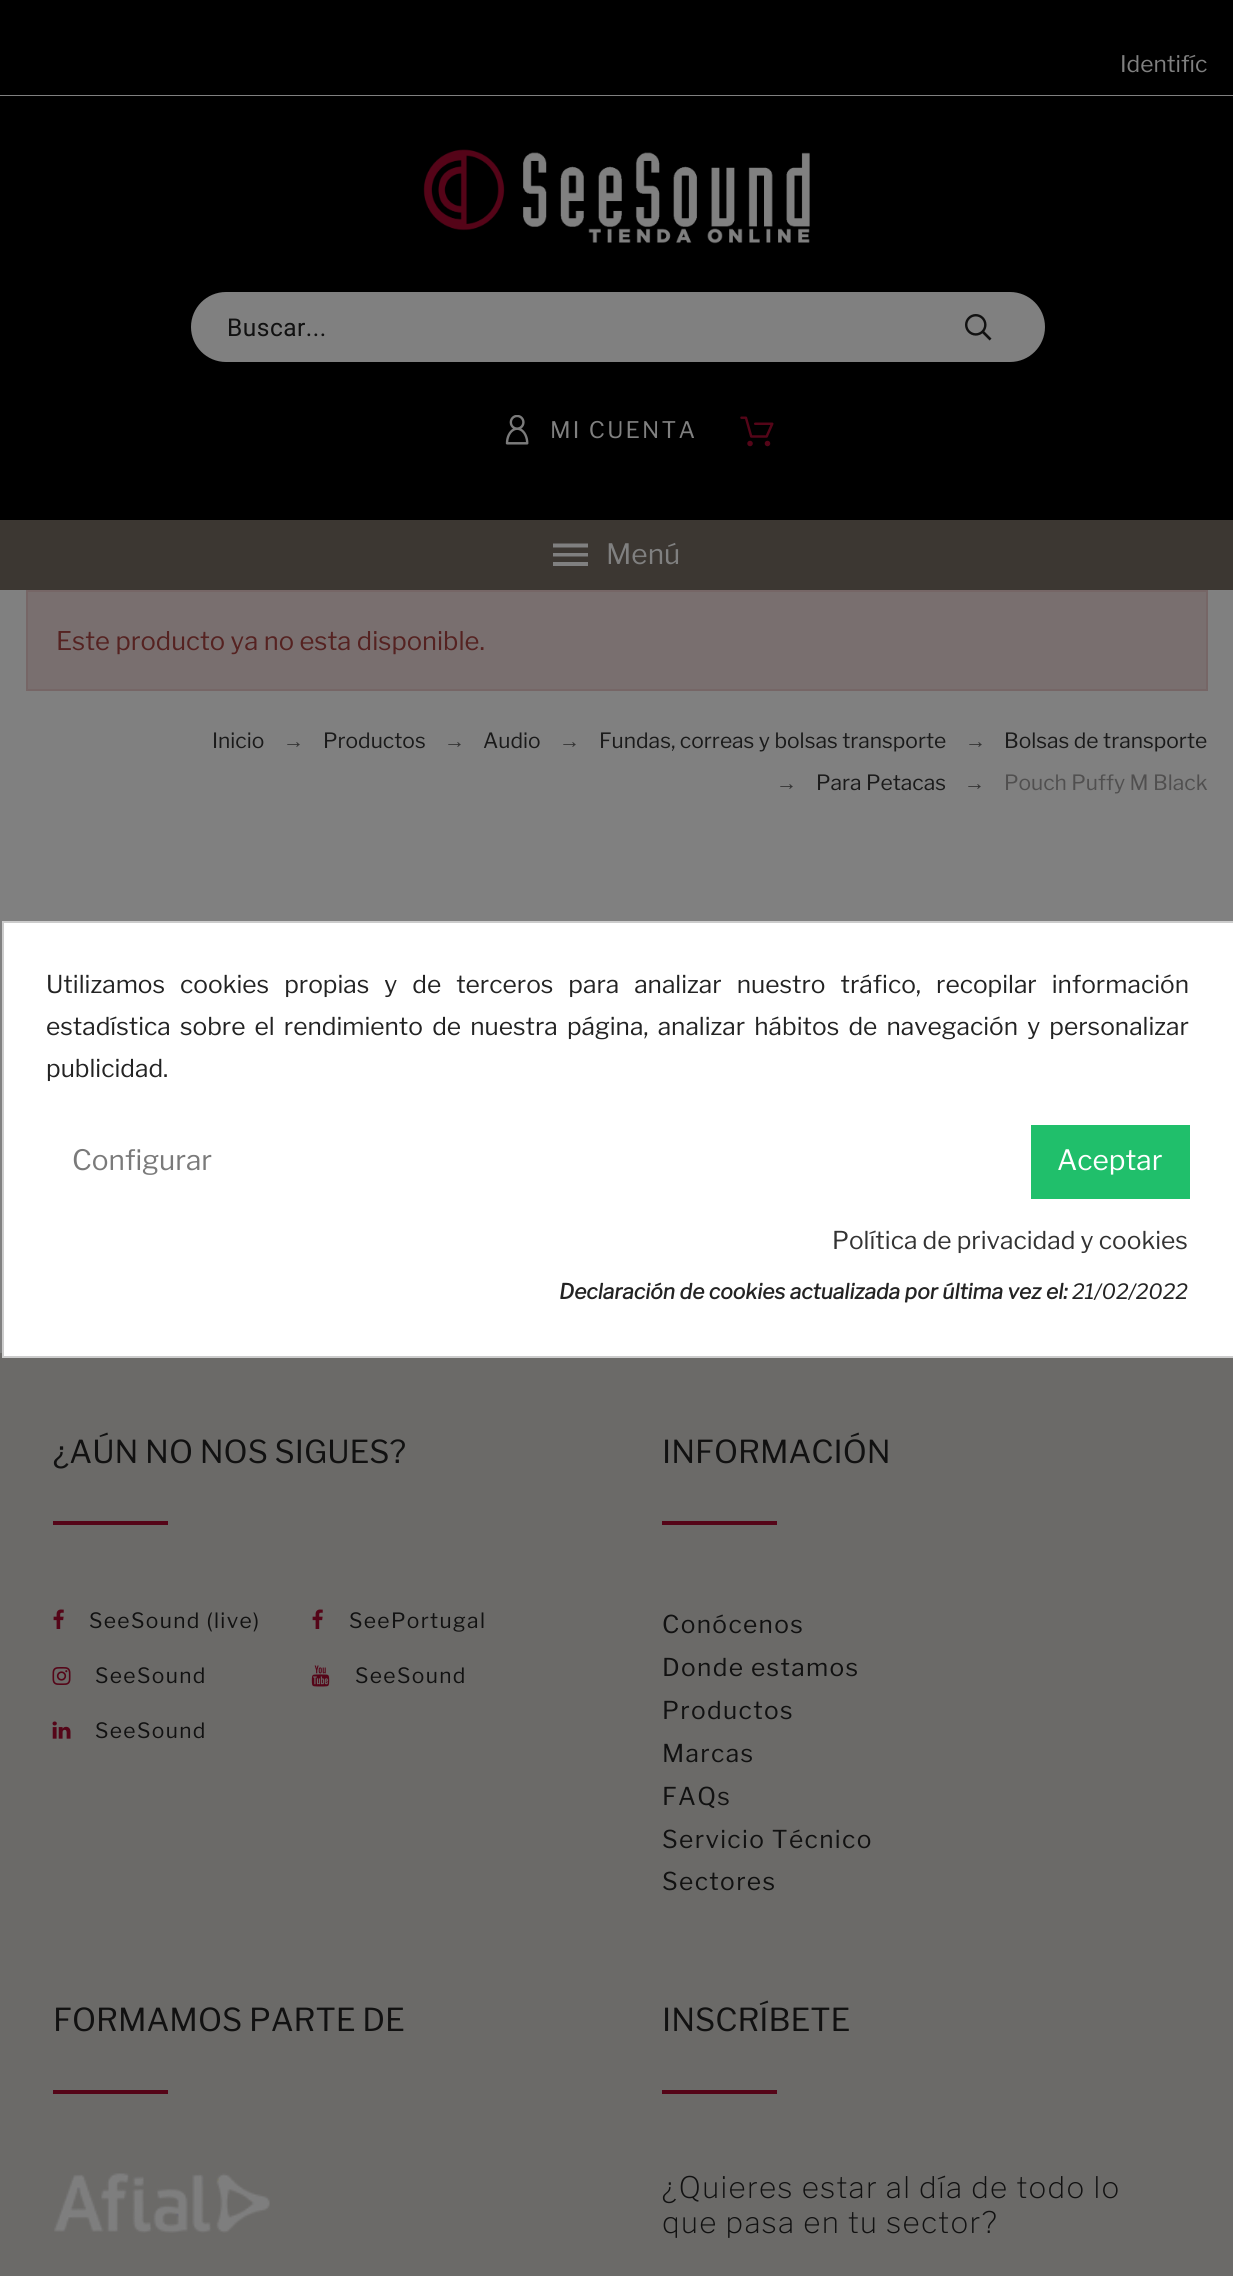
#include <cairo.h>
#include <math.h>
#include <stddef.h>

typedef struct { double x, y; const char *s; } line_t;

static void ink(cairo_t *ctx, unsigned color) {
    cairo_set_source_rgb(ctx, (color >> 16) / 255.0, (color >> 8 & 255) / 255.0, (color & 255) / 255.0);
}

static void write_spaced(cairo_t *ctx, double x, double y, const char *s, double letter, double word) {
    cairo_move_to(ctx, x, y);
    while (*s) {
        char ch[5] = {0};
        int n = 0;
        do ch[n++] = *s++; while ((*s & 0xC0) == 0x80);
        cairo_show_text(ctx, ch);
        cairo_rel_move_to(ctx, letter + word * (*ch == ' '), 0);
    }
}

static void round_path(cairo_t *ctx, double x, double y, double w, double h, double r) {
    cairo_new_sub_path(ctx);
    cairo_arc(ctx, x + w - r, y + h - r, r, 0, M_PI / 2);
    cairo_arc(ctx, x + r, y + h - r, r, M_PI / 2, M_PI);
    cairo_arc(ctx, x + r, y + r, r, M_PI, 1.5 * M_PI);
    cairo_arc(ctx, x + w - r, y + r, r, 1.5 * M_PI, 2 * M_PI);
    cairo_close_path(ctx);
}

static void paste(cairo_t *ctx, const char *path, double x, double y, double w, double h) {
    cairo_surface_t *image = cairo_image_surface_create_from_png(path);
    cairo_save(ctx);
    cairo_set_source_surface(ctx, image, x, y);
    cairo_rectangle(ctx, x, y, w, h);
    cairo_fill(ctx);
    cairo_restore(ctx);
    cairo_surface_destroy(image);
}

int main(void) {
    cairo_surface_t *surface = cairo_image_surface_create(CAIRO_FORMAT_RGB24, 1233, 2276);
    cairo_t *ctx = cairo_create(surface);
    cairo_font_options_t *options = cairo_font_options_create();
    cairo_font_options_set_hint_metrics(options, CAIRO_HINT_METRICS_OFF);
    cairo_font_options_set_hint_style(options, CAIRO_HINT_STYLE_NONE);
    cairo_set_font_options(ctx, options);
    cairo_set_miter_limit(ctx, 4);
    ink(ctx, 0x808080);
    cairo_paint(ctx);
    ink(ctx, 0x000000);
    cairo_rectangle(ctx, 0, 0, 1233, 95);
    cairo_fill(ctx);
    cairo_select_font_face(ctx, "Libre Franklin", CAIRO_FONT_SLANT_NORMAL, CAIRO_FONT_WEIGHT_NORMAL);
    cairo_set_font_size(ctx, 22.75);
    ink(ctx, 0x808080);
    cairo_move_to(ctx, 1120, 72);
    cairo_show_text(ctx, "Identifíc");
    ink(ctx, 0x000000);
    cairo_rectangle(ctx, 0, 96, 1233, 424);
    cairo_fill(ctx);
    paste(ctx, "media/1.png", 423, 149, 387, 95);
    ink(ctx, 0x808080);
    round_path(ctx, 192, 293, 852, 68, 34);
    cairo_fill_preserve(ctx);
    cairo_stroke(ctx);
    cairo_select_font_face(ctx, "Roboto", CAIRO_FONT_SLANT_NORMAL, CAIRO_FONT_WEIGHT_NORMAL);
    cairo_set_font_size(ctx, 24.5);
    ink(ctx, 0x111111);
    write_spaced(ctx, 227, 336, "Buscar...", 0.5, 0);
    paste(ctx, "media/2.png", 965, 314, 27, 27);
    paste(ctx, "media/3.png", 505, 415, 24, 30);
    cairo_select_font_face(ctx, "Libre Franklin", CAIRO_FONT_SLANT_NORMAL, CAIRO_FONT_WEIGHT_NORMAL);
    cairo_set_font_size(ctx, 22.75);
    ink(ctx, 0x808080);
    write_spaced(ctx, 550, 438, "MI CUENTA", 2.25, 0);
    paste(ctx, "media/4.png", 740, 416, 34, 31);
    ink(ctx, 0x3C3732);
    cairo_rectangle(ctx, 0, 520, 1233, 70);
    cairo_fill(ctx);
    ink(ctx, 0x808080);
    cairo_new_path(ctx);
    cairo_move_to(ctx, 553, 566);
    cairo_line_to(ctx, 588, 566);
    cairo_line_to(ctx, 588, 562);
    cairo_line_to(ctx, 553, 562);
    cairo_close_path(ctx);
    cairo_move_to(ctx, 553, 556.5);
    cairo_line_to(ctx, 588, 556.5);
    cairo_line_to(ctx, 588, 553);
    cairo_line_to(ctx, 553, 553);
    cairo_close_path(ctx);
    cairo_move_to(ctx, 553, 543.5);
    cairo_line_to(ctx, 553, 547.5);
    cairo_line_to(ctx, 588, 547.5);
    cairo_line_to(ctx, 588, 543.5);
    cairo_close_path(ctx);
    cairo_fill(ctx);
    cairo_set_font_size(ctx, 28);
    cairo_move_to(ctx, 606, 564);
    cairo_show_text(ctx, "Menú");
    ink(ctx, 0x796F6F);
    cairo_rectangle(ctx, 27, 591, 1180, 99);
    cairo_fill_preserve(ctx);
    ink(ctx, 0x766666);
    cairo_stroke(ctx);
    cairo_set_font_size(ctx, 25.6);
    ink(ctx, 0x552221);
    cairo_move_to(ctx, 56, 650);
    cairo_show_text(ctx, "Este producto ya no esta disponible.");
    cairo_set_font_size(ctx, 21);
    ink(ctx, 0x1A1A1A);
    cairo_move_to(ctx, 212, 748);
    cairo_show_text(ctx, "Inicio");
    cairo_select_font_face(ctx, "Liberation Sans", CAIRO_FONT_SLANT_NORMAL, CAIRO_FONT_WEIGHT_NORMAL);
    ink(ctx, 0x333333);
    cairo_move_to(ctx, 283, 748);
    cairo_show_text(ctx, "→");
    cairo_select_font_face(ctx, "Libre Franklin", CAIRO_FONT_SLANT_NORMAL, CAIRO_FONT_WEIGHT_NORMAL);
    ink(ctx, 0x1A1A1A);
    cairo_move_to(ctx, 323, 748);
    cairo_show_text(ctx, "Productos");
    cairo_select_font_face(ctx, "Liberation Sans", CAIRO_FONT_SLANT_NORMAL, CAIRO_FONT_WEIGHT_NORMAL);
    ink(ctx, 0x333333);
    cairo_move_to(ctx, 444, 748);
    cairo_show_text(ctx, "→");
    cairo_select_font_face(ctx, "Libre Franklin", CAIRO_FONT_SLANT_NORMAL, CAIRO_FONT_WEIGHT_NORMAL);
    ink(ctx, 0x1A1A1A);
    cairo_move_to(ctx, 483, 748);
    cairo_show_text(ctx, "Audio");
    cairo_select_font_face(ctx, "Liberation Sans", CAIRO_FONT_SLANT_NORMAL, CAIRO_FONT_WEIGHT_NORMAL);
    ink(ctx, 0x333333);
    cairo_move_to(ctx, 559, 748);
    cairo_show_text(ctx, "→");
    cairo_select_font_face(ctx, "Libre Franklin", CAIRO_FONT_SLANT_NORMAL, CAIRO_FONT_WEIGHT_NORMAL);
    ink(ctx, 0x1A1A1A);
    cairo_move_to(ctx, 599, 748);
    cairo_show_text(ctx, "Fundas, correas y bolsas transporte");
    cairo_select_font_face(ctx, "Liberation Sans", CAIRO_FONT_SLANT_NORMAL, CAIRO_FONT_WEIGHT_NORMAL);
    ink(ctx, 0x333333);
    cairo_move_to(ctx, 965, 748);
    cairo_show_text(ctx, "→");
    cairo_select_font_face(ctx, "Libre Franklin", CAIRO_FONT_SLANT_NORMAL, CAIRO_FONT_WEIGHT_NORMAL);
    ink(ctx, 0x1A1A1A);
    cairo_move_to(ctx, 1004, 748);
    cairo_show_text(ctx, "Bolsas de transporte");
    cairo_select_font_face(ctx, "Liberation Sans", CAIRO_FONT_SLANT_NORMAL, CAIRO_FONT_WEIGHT_NORMAL);
    ink(ctx, 0x333333);
    cairo_move_to(ctx, 776, 790);
    cairo_show_text(ctx, "→");
    cairo_select_font_face(ctx, "Libre Franklin", CAIRO_FONT_SLANT_NORMAL, CAIRO_FONT_WEIGHT_NORMAL);
    ink(ctx, 0x1A1A1A);
    cairo_move_to(ctx, 816, 790);
    cairo_show_text(ctx, "Para Petacas");
    cairo_select_font_face(ctx, "Liberation Sans", CAIRO_FONT_SLANT_NORMAL, CAIRO_FONT_WEIGHT_NORMAL);
    ink(ctx, 0x333333);
    cairo_move_to(ctx, 964, 790);
    cairo_show_text(ctx, "→");
    cairo_select_font_face(ctx, "Libre Franklin", CAIRO_FONT_SLANT_NORMAL, CAIRO_FONT_WEIGHT_NORMAL);
    ink(ctx, 0x504F4F);
    cairo_move_to(ctx, 1004, 790);
    cairo_show_text(ctx, "Pouch Puffy M Black");
    ink(ctx, 0x6B6A68);
    cairo_rectangle(ctx, 0, 1353, 1233, 923);
    cairo_fill(ctx);
    cairo_set_font_size(ctx, 31.5);
    ink(ctx, 0x111111);
    cairo_move_to(ctx, 53, 1463);
    cairo_show_text(ctx, "¿AÚN NO NOS SIGUES?");
    ink(ctx, 0x550518);
    cairo_rectangle(ctx, 53, 1521, 115, 4);
    cairo_fill(ctx);
    paste(ctx, "media/5.png", 53, 1609, 11, 20);
    cairo_set_font_size(ctx, 21);
    ink(ctx, 0x111111);
    write_spaced(ctx, 89, 1628, "SeeSound (live)", 1.35, 0);
    paste(ctx, "media/6.png", 52, 1667, 19, 18);
    write_spaced(ctx, 95, 1683, "SeeSound", 1.35, 0);
    paste(ctx, "media/7.png", 52, 1721, 19, 18);
    write_spaced(ctx, 95, 1738, "SeeSound", 1.35, 0);
    paste(ctx, "media/5.png", 312, 1609, 11, 20);
    write_spaced(ctx, 349, 1628, "SeePortugal", 1.35, 0);
    paste(ctx, "media/8.png", 311, 1665, 19, 22);
    write_spaced(ctx, 355, 1683, "SeeSound", 1.35, 0);
    cairo_set_font_size(ctx, 31.5);
    cairo_move_to(ctx, 662, 1463);
    cairo_show_text(ctx, "INFORMACIÓN");
    ink(ctx, 0x550518);
    cairo_rectangle(ctx, 662, 1521, 115, 4);
    cairo_fill(ctx);
    cairo_set_font_size(ctx, 24.5);
    ink(ctx, 0x111111);
    {
        static const line_t items[] = {
            {662, 1633, "Conócenos"},
            {662, 1676, "Donde estamos"},
            {662, 1719, "Productos"},
            {662, 1762, "Marcas"},
            {662, 1805, "FAQs"},
            {662, 1848, "Servicio Técnico"},
            {662, 1890, "Sectores"},
        };
        for (size_t i = 0; i < sizeof items / sizeof *items; i++) {
            write_spaced(ctx, items[i].x, items[i].y, items[i].s, 1.35, 0);
        }
    }
    cairo_set_font_size(ctx, 31.5);
    cairo_move_to(ctx, 53, 2031);
    cairo_show_text(ctx, "FORMAMOS PARTE DE");
    ink(ctx, 0x550518);
    cairo_rectangle(ctx, 53, 2090, 115, 4);
    cairo_fill(ctx);
    paste(ctx, "media/9.png", 54, 2173, 216, 60);
    ink(ctx, 0x111111);
    cairo_move_to(ctx, 662, 2031);
    cairo_show_text(ctx, "INSCRÍBETE");
    ink(ctx, 0x550518);
    cairo_rectangle(ctx, 662, 2090, 115, 4);
    cairo_fill(ctx);
    cairo_select_font_face(ctx, "Libre Franklin ExtraLight", CAIRO_FONT_SLANT_NORMAL, CAIRO_FONT_WEIGHT_NORMAL);
    cairo_set_font_size(ctx, 29.6);
    ink(ctx, 0x111111);
    write_spaced(ctx, 662, 2198, "¿Quieres estar al día de todo lo", 1.35, 0);
    write_spaced(ctx, 662, 2233, "que pasa en tu sector?", 1.35, 0);
    ink(ctx, 0xFFFFFF);
    cairo_rectangle(ctx, 3, 922, 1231, 435);
    cairo_fill_preserve(ctx);
    ink(ctx, 0xCCCCCC);
    cairo_stroke(ctx);
    cairo_select_font_face(ctx, "Libre Franklin", CAIRO_FONT_SLANT_NORMAL, CAIRO_FONT_WEIGHT_NORMAL);
    cairo_set_font_size(ctx, 24.5);
    ink(ctx, 0x232323);
    write_spaced(ctx, 46, 993, "Utilizamos cookies propias y de terceros para analizar nuestro tráfico, recopilar información", 0, 9.75);
    write_spaced(ctx, 46, 1035, "estadística sobre el rendimiento de nuestra página, analizar hábitos de navegación y personalizar", 0, 3.9);
    cairo_move_to(ctx, 46, 1077);
    cairo_show_text(ctx, "publicidad.");
    cairo_set_font_size(ctx, 28);
    ink(ctx, 0x7A7A7A);
    cairo_move_to(ctx, 72, 1170);
    cairo_show_text(ctx, "Configurar");
    ink(ctx, 0x20BF6B);
    cairo_rectangle(ctx, 1031, 1125, 159, 74);
    cairo_fill(ctx);
    ink(ctx, 0xFFFFFF);
    cairo_move_to(ctx, 1057, 1170);
    cairo_show_text(ctx, "Aceptar");
    cairo_set_font_size(ctx, 24.5);
    ink(ctx, 0x333333);
    cairo_move_to(ctx, 832, 1249);
    cairo_show_text(ctx, "Política de privacidad y cookies");
    cairo_select_font_face(ctx, "Libre Franklin", CAIRO_FONT_SLANT_ITALIC, CAIRO_FONT_WEIGHT_BOLD);
    cairo_set_font_size(ctx, 21);
    ink(ctx, 0x232323);
    cairo_move_to(ctx, 559, 1299);
    cairo_show_text(ctx, "Declaración de cookies actualizada por última vez el:");
    cairo_select_font_face(ctx, "Libre Franklin Thin", CAIRO_FONT_SLANT_ITALIC, CAIRO_FONT_WEIGHT_NORMAL);
    cairo_move_to(ctx, 1072, 1299);
    cairo_show_text(ctx, "21/02/2022");
    cairo_surface_write_to_png(surface, "image.png");
    cairo_font_options_destroy(options);
    cairo_destroy(ctx);
    cairo_surface_destroy(surface);
    return 0;
}
